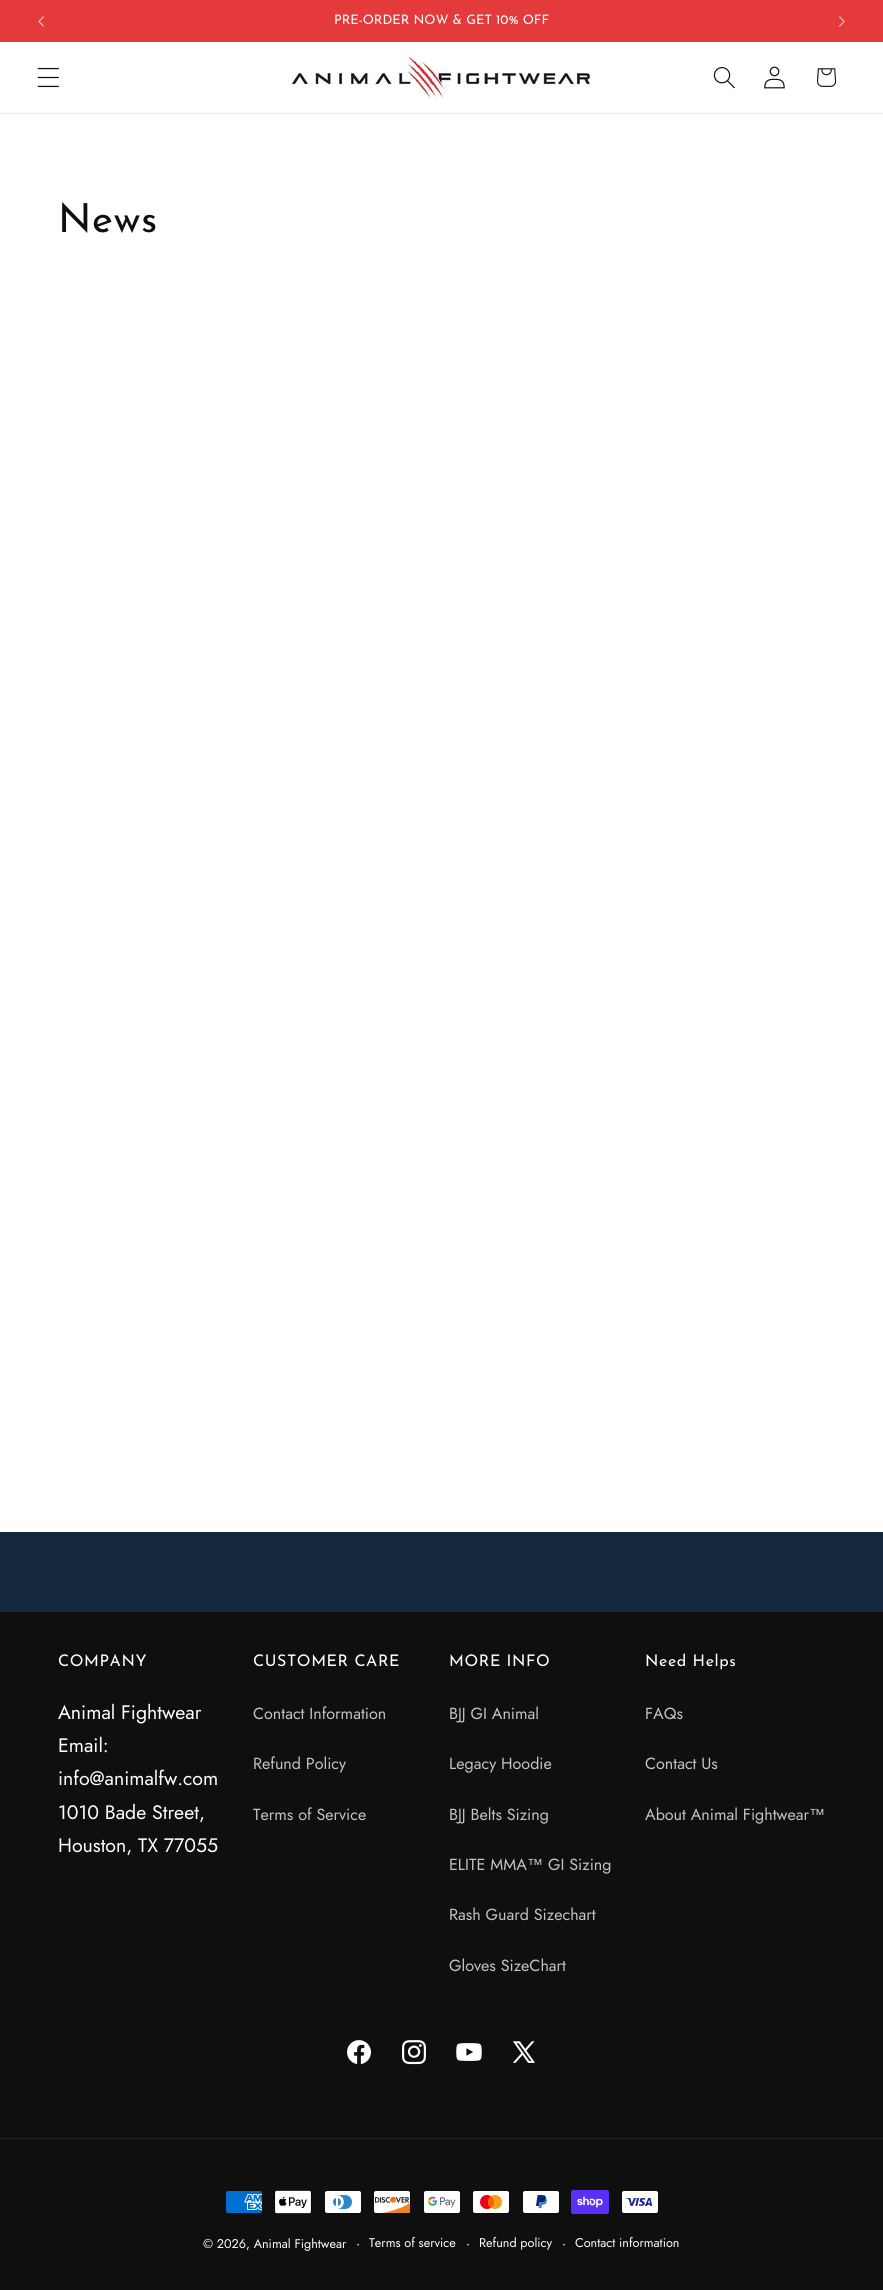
#include <cairo.h>
#include <math.h>
#include <stddef.h>

typedef struct { double x, y; const char *s; } line_t;

static void ink(cairo_t *ctx, unsigned color) {
    cairo_set_source_rgb(ctx, (color >> 16) / 255.0, (color >> 8 & 255) / 255.0, (color & 255) / 255.0);
}

static void write_spaced(cairo_t *ctx, double x, double y, const char *s, double letter, double word) {
    cairo_move_to(ctx, x, y);
    while (*s) {
        char ch[5] = {0};
        int n = 0;
        do ch[n++] = *s++; while ((*s & 0xC0) == 0x80);
        cairo_show_text(ctx, ch);
        cairo_rel_move_to(ctx, letter + word * (*ch == ' '), 0);
    }
}

static void paste(cairo_t *ctx, const char *path, double x, double y, double w, double h) {
    cairo_surface_t *image = cairo_image_surface_create_from_png(path);
    cairo_save(ctx);
    cairo_set_source_surface(ctx, image, x, y);
    cairo_rectangle(ctx, x, y, w, h);
    cairo_fill(ctx);
    cairo_restore(ctx);
    cairo_surface_destroy(image);
}

int main(void) {
    cairo_surface_t *surface = cairo_image_surface_create(CAIRO_FORMAT_RGB24, 883, 2290);
    cairo_t *ctx = cairo_create(surface);
    cairo_font_options_t *options = cairo_font_options_create();
    cairo_font_options_set_hint_metrics(options, CAIRO_HINT_METRICS_OFF);
    cairo_font_options_set_hint_style(options, CAIRO_HINT_STYLE_NONE);
    cairo_set_font_options(ctx, options);
    cairo_set_miter_limit(ctx, 4);
    ink(ctx, 0xFFFFFF);
    cairo_paint(ctx);
    ink(ctx, 0xE43A3B);
    cairo_rectangle(ctx, 0, 0, 883, 42);
    cairo_fill(ctx);
    paste(ctx, "media/1.png", 38, 16, 6, 11);
    cairo_select_font_face(ctx, "Josefin Sans", CAIRO_FONT_SLANT_NORMAL, CAIRO_FONT_WEIGHT_NORMAL);
    cairo_set_font_size(ctx, 13);
    ink(ctx, 0xFFFFFF);
    cairo_move_to(ctx, 334, 24);
    cairo_show_text(ctx, "PRE-ORDER NOW & GET 10% OFF");
    paste(ctx, "media/2.png", 839, 16, 6, 11);
    ink(ctx, 0xECECEC);
    cairo_rectangle(ctx, 0, 113, 883, 1);
    cairo_fill(ctx);
    paste(ctx, "media/3.png", 37, 67, 22, 21);
    paste(ctx, "media/4.png", 291, 57, 300, 42);
    paste(ctx, "media/5.png", 713, 67, 22, 22);
    paste(ctx, "media/6.png", 764, 66, 21, 23);
    paste(ctx, "media/7.png", 817, 68, 20, 19);
    cairo_set_font_size(ctx, 40);
    ink(ctx, 0x0F0F0F);
    write_spaced(ctx, 58, 232, "News", 0.6, 0);
    ink(ctx, 0x16283E);
    cairo_rectangle(ctx, 0, 1532, 883, 80);
    cairo_fill(ctx);
    ink(ctx, 0x0F0F0F);
    cairo_rectangle(ctx, 0, 1612, 883, 678);
    cairo_fill(ctx);
    cairo_set_font_size(ctx, 16);
    ink(ctx, 0xFFFFFF);
    write_spaced(ctx, 58, 1666, "COMPANY", 0.6, 0);
    cairo_select_font_face(ctx, "Jost", CAIRO_FONT_SLANT_NORMAL, CAIRO_FONT_WEIGHT_NORMAL);
    cairo_set_font_size(ctx, 19.5);
    {
        static const line_t items[] = {
            {58, 1719, "Animal Fightwear"},
            {58, 1752, "Email:"},
            {58, 1785, "info@animalfw.com"},
            {58, 1819, "1010 Bade Street,"},
            {58, 1852, "Houston, TX 77055"},
        };
        for (size_t i = 0; i < sizeof items / sizeof *items; i++) {
            cairo_move_to(ctx, items[i].x, items[i].y);
            cairo_show_text(ctx, items[i].s);
        }
    }
    cairo_select_font_face(ctx, "Josefin Sans", CAIRO_FONT_SLANT_NORMAL, CAIRO_FONT_WEIGHT_NORMAL);
    cairo_set_font_size(ctx, 16);
    write_spaced(ctx, 253, 1666, "CUSTOMER CARE", 0.6, 0);
    cairo_select_font_face(ctx, "Jost", CAIRO_FONT_SLANT_NORMAL, CAIRO_FONT_WEIGHT_NORMAL);
    cairo_set_font_size(ctx, 16.1);
    ink(ctx, 0xC3C3C3);
    {
        static const line_t items[] = {
            {253, 1719, "Contact Information"},
            {253, 1769, "Refund Policy"},
            {253, 1820, "Terms of Service"},
        };
        for (size_t i = 0; i < sizeof items / sizeof *items; i++) {
            cairo_move_to(ctx, items[i].x, items[i].y);
            cairo_show_text(ctx, items[i].s);
        }
    }
    cairo_select_font_face(ctx, "Josefin Sans", CAIRO_FONT_SLANT_NORMAL, CAIRO_FONT_WEIGHT_NORMAL);
    cairo_set_font_size(ctx, 16);
    ink(ctx, 0xFFFFFF);
    write_spaced(ctx, 449, 1666, "MORE INFO", 0.6, 0);
    cairo_select_font_face(ctx, "Jost", CAIRO_FONT_SLANT_NORMAL, CAIRO_FONT_WEIGHT_NORMAL);
    cairo_set_font_size(ctx, 16.1);
    ink(ctx, 0xC3C3C3);
    {
        static const line_t items[] = {
            {449, 1719, "BJJ GI Animal"},
            {449, 1769, "Legacy Hoodie"},
            {449, 1820, "BJJ Belts Sizing"},
            {449, 1870, "ELITE MMA"},
        };
        for (size_t i = 0; i < sizeof items / sizeof *items; i++) {
            cairo_move_to(ctx, items[i].x, items[i].y);
            cairo_show_text(ctx, items[i].s);
        }
    }
    cairo_select_font_face(ctx, "Liberation Sans", CAIRO_FONT_SLANT_NORMAL, CAIRO_FONT_WEIGHT_NORMAL);
    cairo_move_to(ctx, 527, 1870);
    cairo_show_text(ctx, "™");
    cairo_select_font_face(ctx, "Jost", CAIRO_FONT_SLANT_NORMAL, CAIRO_FONT_WEIGHT_NORMAL);
    {
        static const line_t items[] = {
            {548, 1870, "GI Sizing"},
            {449, 1920, "Rash Guard Sizechart"},
            {449, 1971, "Gloves SizeChart"},
        };
        for (size_t i = 0; i < sizeof items / sizeof *items; i++) {
            cairo_move_to(ctx, items[i].x, items[i].y);
            cairo_show_text(ctx, items[i].s);
        }
    }
    cairo_select_font_face(ctx, "Josefin Sans", CAIRO_FONT_SLANT_NORMAL, CAIRO_FONT_WEIGHT_NORMAL);
    cairo_set_font_size(ctx, 16);
    ink(ctx, 0xFFFFFF);
    write_spaced(ctx, 645, 1666, "Need Helps", 0.6, 0);
    cairo_select_font_face(ctx, "Jost", CAIRO_FONT_SLANT_NORMAL, CAIRO_FONT_WEIGHT_NORMAL);
    cairo_set_font_size(ctx, 16.1);
    ink(ctx, 0xC3C3C3);
    {
        static const line_t items[] = {
            {645, 1719, "FAQs"},
            {645, 1769, "Contact Us"},
            {645, 1820, "About Animal Fightwear"},
        };
        for (size_t i = 0; i < sizeof items / sizeof *items; i++) {
            cairo_move_to(ctx, items[i].x, items[i].y);
            cairo_show_text(ctx, items[i].s);
        }
    }
    cairo_select_font_face(ctx, "Liberation Sans", CAIRO_FONT_SLANT_NORMAL, CAIRO_FONT_WEIGHT_NORMAL);
    cairo_move_to(ctx, 809, 1820);
    cairo_show_text(ctx, "™");
    paste(ctx, "media/8.png", 347, 2040, 24, 24);
    paste(ctx, "media/9.png", 402, 2040, 24, 25);
    paste(ctx, "media/10.png", 456, 2043, 26, 18);
    paste(ctx, "media/11.png", 513, 2041, 22, 22);
    ink(ctx, 0x222222);
    cairo_rectangle(ctx, 0, 2138, 883, 1);
    cairo_fill(ctx);
    paste(ctx, "media/12.png", 226, 2191, 36, 22);
    paste(ctx, "media/13.png", 274, 2190, 38, 24);
    paste(ctx, "media/14.png", 325, 2191, 36, 22);
    paste(ctx, "media/15.png", 374, 2191, 36, 22);
    paste(ctx, "media/16.png", 424, 2191, 36, 22);
    paste(ctx, "media/17.png", 473, 2191, 36, 22);
    paste(ctx, "media/18.png", 523, 2191, 36, 22);
    paste(ctx, "media/19.png", 571, 2190, 38, 24);
    paste(ctx, "media/20.png", 622, 2191, 36, 22);
    cairo_select_font_face(ctx, "Jost", CAIRO_FONT_SLANT_NORMAL, CAIRO_FONT_WEIGHT_NORMAL);
    cairo_set_font_size(ctx, 12.6);
    ink(ctx, 0xFFFFFF);
    cairo_move_to(ctx, 203, 2248);
    cairo_show_text(ctx, "© 2026, Animal Fightwear");
    cairo_set_font_size(ctx, 14);
    cairo_move_to(ctx, 356, 2248);
    cairo_show_text(ctx, "·");
    cairo_set_font_size(ctx, 12.6);
    cairo_move_to(ctx, 369, 2247);
    cairo_show_text(ctx, "Terms of service");
    cairo_set_font_size(ctx, 14);
    cairo_move_to(ctx, 466, 2248);
    cairo_show_text(ctx, "·");
    cairo_set_font_size(ctx, 12.6);
    cairo_move_to(ctx, 479, 2247);
    cairo_show_text(ctx, "Refund policy");
    cairo_set_font_size(ctx, 14);
    cairo_move_to(ctx, 562, 2248);
    cairo_show_text(ctx, "·");
    cairo_set_font_size(ctx, 12.6);
    cairo_move_to(ctx, 575, 2247);
    cairo_show_text(ctx, "Contact information");
    cairo_surface_write_to_png(surface, "image.png");
    cairo_font_options_destroy(options);
    cairo_destroy(ctx);
    cairo_surface_destroy(surface);
    return 0;
}
